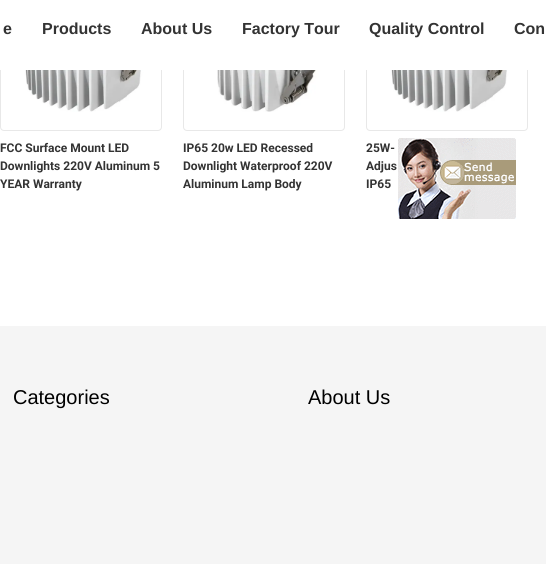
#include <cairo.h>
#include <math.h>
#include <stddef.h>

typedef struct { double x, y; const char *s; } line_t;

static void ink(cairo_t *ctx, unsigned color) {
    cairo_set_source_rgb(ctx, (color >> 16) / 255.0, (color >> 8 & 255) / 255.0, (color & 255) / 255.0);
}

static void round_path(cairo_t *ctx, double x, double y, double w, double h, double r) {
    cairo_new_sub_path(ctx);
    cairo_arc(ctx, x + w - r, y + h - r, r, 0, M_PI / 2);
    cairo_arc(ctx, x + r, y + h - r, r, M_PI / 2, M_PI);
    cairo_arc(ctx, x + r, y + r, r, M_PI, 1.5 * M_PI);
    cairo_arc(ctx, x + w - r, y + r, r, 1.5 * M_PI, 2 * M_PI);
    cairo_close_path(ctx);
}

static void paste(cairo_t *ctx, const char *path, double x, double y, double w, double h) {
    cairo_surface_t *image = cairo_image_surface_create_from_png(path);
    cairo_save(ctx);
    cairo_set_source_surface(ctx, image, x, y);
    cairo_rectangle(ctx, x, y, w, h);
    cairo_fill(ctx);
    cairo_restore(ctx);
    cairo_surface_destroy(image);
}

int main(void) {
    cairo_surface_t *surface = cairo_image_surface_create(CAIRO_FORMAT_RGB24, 546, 564);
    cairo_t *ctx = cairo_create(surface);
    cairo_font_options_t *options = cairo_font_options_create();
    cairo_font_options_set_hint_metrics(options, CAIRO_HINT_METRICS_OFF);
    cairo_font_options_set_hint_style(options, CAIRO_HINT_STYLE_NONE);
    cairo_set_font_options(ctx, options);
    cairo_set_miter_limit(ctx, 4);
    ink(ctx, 0xFFFFFF);
    cairo_paint(ctx);
    round_path(ctx, 0.5, -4.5, 161, 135, 3.5);
    ink(ctx, 0xE8E8E8);
    cairo_set_line_width(ctx, 1);
    cairo_stroke(ctx);
    round_path(ctx, 183.5, -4.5, 161, 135, 3.5);
    cairo_stroke(ctx);
    round_path(ctx, 366.5, -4.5, 161, 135, 3.5);
    cairo_stroke(ctx);
    ink(ctx, 0xFFFFFF);
    cairo_rectangle(ctx, 0, 0, 528, 70);
    cairo_fill(ctx);
    cairo_select_font_face(ctx, "Liberation Sans", CAIRO_FONT_SLANT_NORMAL, CAIRO_FONT_WEIGHT_BOLD);
    cairo_set_font_size(ctx, 16);
    ink(ctx, 0x333333);
    {
        static const line_t items[] = {
            {3, 34, "e"},
            {42, 34, "Products"},
            {141, 34, "About Us"},
            {242, 34, "Factory Tour"},
            {369, 34, "Quality Control"},
            {514, 34, "Con"},
        };
        for (size_t i = 0; i < sizeof items / sizeof *items; i++) {
            cairo_move_to(ctx, items[i].x, items[i].y);
            cairo_show_text(ctx, items[i].s);
        }
    }
    paste(ctx, "media/1.png", 16, 70, 136, 42);
    cairo_select_font_face(ctx, "Roboto", CAIRO_FONT_SLANT_NORMAL, CAIRO_FONT_WEIGHT_BOLD);
    cairo_set_font_size(ctx, 12);
    {
        static const line_t items[] = {
            {0, 152, "FCC Surface Mount LED"},
            {0, 170, "Downlights 220V Aluminum 5"},
            {0, 188, "YEAR Warranty"},
        };
        for (size_t i = 0; i < sizeof items / sizeof *items; i++) {
            cairo_move_to(ctx, items[i].x, items[i].y);
            cairo_show_text(ctx, items[i].s);
        }
    }
    paste(ctx, "media/2.png", 203, 70, 122, 42);
    {
        static const line_t items[] = {
            {183, 152, "IP65 20w LED Recessed"},
            {183, 170, "Downlight Waterproof 220V"},
            {183, 188, "Aluminum Lamp Body"},
        };
        for (size_t i = 0; i < sizeof items / sizeof *items; i++) {
            cairo_move_to(ctx, items[i].x, items[i].y);
            cairo_show_text(ctx, items[i].s);
        }
    }
    paste(ctx, "media/1.png", 382, 70, 136, 42);
    {
        static const line_t items[] = {
            {366, 152, "25W-"},
            {366, 170, "Adjus"},
            {366, 188, "IP65"},
        };
        for (size_t i = 0; i < sizeof items / sizeof *items; i++) {
            cairo_move_to(ctx, items[i].x, items[i].y);
            cairo_show_text(ctx, items[i].s);
        }
    }
    paste(ctx, "media/3.png", 398, 138, 118, 81);
    ink(ctx, 0xF5F5F5);
    cairo_rectangle(ctx, 0, 326, 546, 238);
    cairo_fill(ctx);
    cairo_select_font_face(ctx, "Liberation Sans", CAIRO_FONT_SLANT_NORMAL, CAIRO_FONT_WEIGHT_NORMAL);
    cairo_set_font_size(ctx, 20);
    ink(ctx, 0x000000);
    cairo_move_to(ctx, 13, 404);
    cairo_show_text(ctx, "Categories");
    cairo_move_to(ctx, 308, 404);
    cairo_show_text(ctx, "About Us");
    cairo_surface_write_to_png(surface, "image.png");
    cairo_font_options_destroy(options);
    cairo_destroy(ctx);
    cairo_surface_destroy(surface);
    return 0;
}
